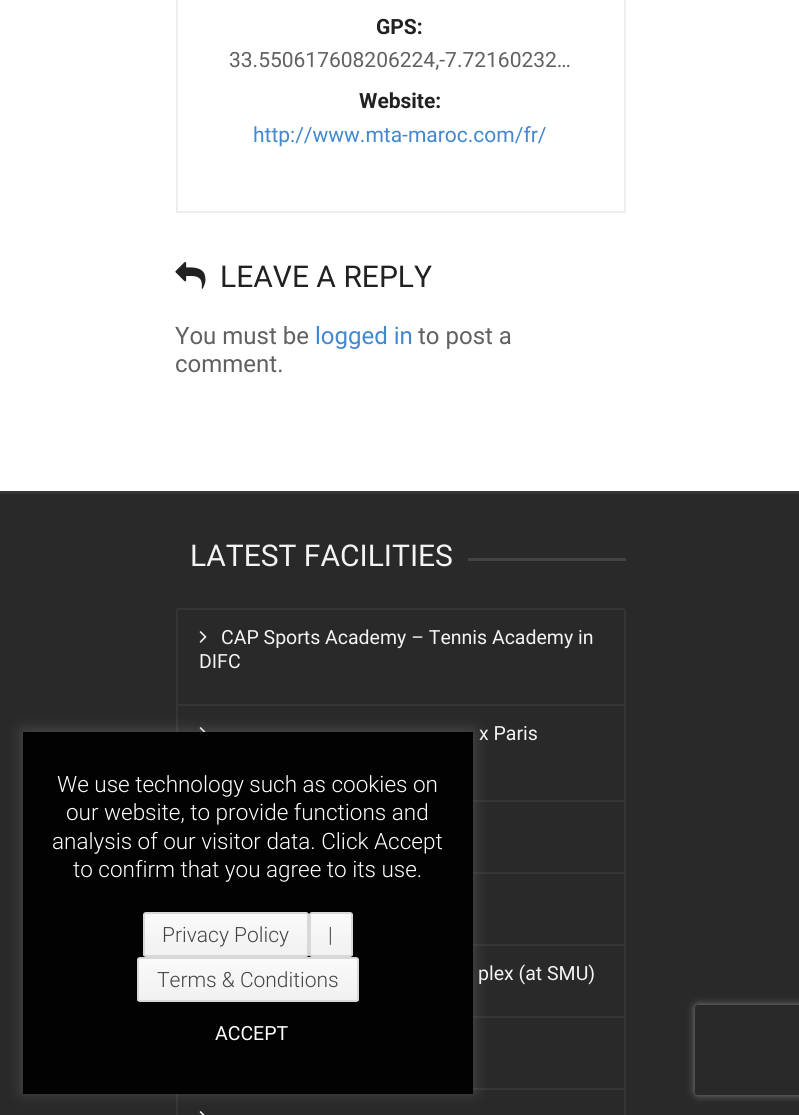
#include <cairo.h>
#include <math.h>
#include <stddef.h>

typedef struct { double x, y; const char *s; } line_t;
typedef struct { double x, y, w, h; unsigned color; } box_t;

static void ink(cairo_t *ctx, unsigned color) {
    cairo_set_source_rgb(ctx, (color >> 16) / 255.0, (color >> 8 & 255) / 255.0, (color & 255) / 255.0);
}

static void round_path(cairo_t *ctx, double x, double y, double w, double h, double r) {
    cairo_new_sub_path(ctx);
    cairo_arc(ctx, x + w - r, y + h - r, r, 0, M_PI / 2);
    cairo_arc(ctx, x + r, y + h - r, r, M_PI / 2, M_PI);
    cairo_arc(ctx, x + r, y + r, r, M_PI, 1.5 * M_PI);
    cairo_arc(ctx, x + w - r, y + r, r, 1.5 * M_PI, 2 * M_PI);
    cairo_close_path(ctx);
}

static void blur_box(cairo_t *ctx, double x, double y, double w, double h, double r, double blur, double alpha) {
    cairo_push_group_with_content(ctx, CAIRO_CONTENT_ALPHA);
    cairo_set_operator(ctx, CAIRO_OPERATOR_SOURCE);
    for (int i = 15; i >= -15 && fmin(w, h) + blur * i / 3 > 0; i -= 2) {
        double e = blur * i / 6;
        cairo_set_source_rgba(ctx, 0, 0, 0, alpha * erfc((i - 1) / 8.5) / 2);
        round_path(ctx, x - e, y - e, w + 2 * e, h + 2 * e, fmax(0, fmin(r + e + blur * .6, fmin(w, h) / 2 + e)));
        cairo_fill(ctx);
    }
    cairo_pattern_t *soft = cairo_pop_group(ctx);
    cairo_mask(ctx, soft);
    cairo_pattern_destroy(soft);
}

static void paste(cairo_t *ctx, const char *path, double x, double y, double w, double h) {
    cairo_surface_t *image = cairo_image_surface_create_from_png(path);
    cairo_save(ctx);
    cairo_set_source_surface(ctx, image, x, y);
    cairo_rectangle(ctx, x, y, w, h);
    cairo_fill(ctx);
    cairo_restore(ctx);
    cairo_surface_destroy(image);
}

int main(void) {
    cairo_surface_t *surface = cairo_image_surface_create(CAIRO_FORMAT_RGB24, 799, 1115);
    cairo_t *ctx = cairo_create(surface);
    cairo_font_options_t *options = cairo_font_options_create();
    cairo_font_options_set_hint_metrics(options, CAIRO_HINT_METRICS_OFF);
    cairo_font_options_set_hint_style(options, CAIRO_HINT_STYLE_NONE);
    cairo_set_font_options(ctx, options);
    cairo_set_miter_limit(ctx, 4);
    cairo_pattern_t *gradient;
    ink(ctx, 0xFFFFFF);
    cairo_paint(ctx);
    cairo_rectangle(ctx, 177, -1, 448, 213);
    ink(ctx, 0xEEEEEE);
    cairo_stroke(ctx);
    cairo_select_font_face(ctx, "Roboto", CAIRO_FONT_SLANT_NORMAL, CAIRO_FONT_WEIGHT_BOLD);
    cairo_set_font_size(ctx, 21);
    ink(ctx, 0x212121);
    cairo_move_to(ctx, 376, 34);
    cairo_show_text(ctx, "GPS:");
    cairo_select_font_face(ctx, "Roboto", CAIRO_FONT_SLANT_NORMAL, CAIRO_FONT_WEIGHT_NORMAL);
    ink(ctx, 0x616161);
    cairo_move_to(ctx, 229, 67);
    cairo_show_text(ctx, "33.550617608206224,-7.72160232…");
    cairo_select_font_face(ctx, "Roboto", CAIRO_FONT_SLANT_NORMAL, CAIRO_FONT_WEIGHT_BOLD);
    ink(ctx, 0x212121);
    cairo_move_to(ctx, 359, 108);
    cairo_show_text(ctx, "Website:");
    cairo_select_font_face(ctx, "Roboto", CAIRO_FONT_SLANT_NORMAL, CAIRO_FONT_WEIGHT_NORMAL);
    ink(ctx, 0x4188D0);
    cairo_move_to(ctx, 253, 142);
    cairo_show_text(ctx, "http://www.mta-maroc.com/fr/");
    paste(ctx, "media/1.png", 175, 262, 31, 27);
    cairo_set_font_size(ctx, 30);
    ink(ctx, 0x212121);
    cairo_move_to(ctx, 220, 287);
    cairo_show_text(ctx, "LEAVE A REPLY");
    cairo_set_font_size(ctx, 24);
    ink(ctx, 0x616161);
    cairo_move_to(ctx, 175, 344);
    cairo_show_text(ctx, "You must be");
    ink(ctx, 0x4188D0);
    cairo_move_to(ctx, 315, 344);
    cairo_show_text(ctx, "logged in");
    ink(ctx, 0x616161);
    cairo_move_to(ctx, 418, 344);
    cairo_show_text(ctx, "to post a");
    cairo_move_to(ctx, 175, 372);
    cairo_show_text(ctx, "comment.");
    ink(ctx, 0x292929);
    cairo_rectangle(ctx, 0, 494, 799, 621);
    cairo_fill(ctx);
    ink(ctx, 0x353535);
    cairo_rectangle(ctx, 0, 491, 799, 3);
    cairo_fill(ctx);
    cairo_set_font_size(ctx, 30);
    ink(ctx, 0xF3F3F3);
    cairo_move_to(ctx, 190, 566);
    cairo_show_text(ctx, "LATEST FACILITIES");
    ink(ctx, 0x444444);
    cairo_rectangle(ctx, 468, 558, 158, 3);
    cairo_fill(ctx);
    round_path(ctx, 177, 609, 448, 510, 2);
    ink(ctx, 0x353535);
    cairo_stroke(ctx);
    paste(ctx, "media/2.png", 199, 631, 8, 12);
    cairo_set_font_size(ctx, 19.5);
    ink(ctx, 0xF3F3F3);
    cairo_move_to(ctx, 221, 644);
    cairo_show_text(ctx, "CAP Sports Academy – Tennis Academy in");
    cairo_move_to(ctx, 199, 668);
    cairo_show_text(ctx, "DIFC");
    ink(ctx, 0x353535);
    cairo_rectangle(ctx, 177, 704, 447, 2);
    cairo_fill(ctx);
    paste(ctx, "media/3.png", 199, 727, 7, 5);
    ink(ctx, 0xF3F3F3);
    cairo_move_to(ctx, 479, 740);
    cairo_show_text(ctx, "x Paris");
    {
        static const box_t items[] = {
            {473, 800, 151, 2, 0x353535},
            {473, 872, 151, 2, 0x353535},
            {473, 944, 151, 2, 0x353535},
        };
        for (size_t i = 0; i < sizeof items / sizeof *items; i++) {
            ink(ctx, items[i].color);
            cairo_rectangle(ctx, items[i].x, items[i].y, items[i].w, items[i].h);
            cairo_fill(ctx);
        }
    }
    ink(ctx, 0xF3F3F3);
    cairo_move_to(ctx, 478, 980);
    cairo_show_text(ctx, "plex (at SMU)");
    ink(ctx, 0x353535);
    cairo_rectangle(ctx, 473, 1016, 151, 2);
    cairo_fill(ctx);
    cairo_rectangle(ctx, 473, 1088, 151, 2);
    cairo_fill(ctx);
    paste(ctx, "media/4.png", 199, 1111, 6, 4);
    ink(ctx, 0xACABAB);
    blur_box(ctx, 23, 731, 450, 361, 0, 7.5, 0.3);
    ink(ctx, 0x020202);
    cairo_rectangle(ctx, 23, 732, 450, 362);
    cairo_fill(ctx);
    cairo_select_font_face(ctx, "Roboto Light", CAIRO_FONT_SLANT_NORMAL, CAIRO_FONT_WEIGHT_NORMAL);
    cairo_set_font_size(ctx, 22.5);
    ink(ctx, 0xFFFFFF);
    {
        static const line_t items[] = {
            {57, 792, "We use technology such as cookies on"},
            {66, 820, "our website, to provide functions and"},
            {52, 849, "analysis of our visitor data. Click Accept"},
            {73, 877, "to confirm that you agree to its use."},
        };
        for (size_t i = 0; i < sizeof items / sizeof *items; i++) {
            cairo_move_to(ctx, items[i].x, items[i].y);
            cairo_show_text(ctx, items[i].s);
        }
    }
    cairo_save(ctx);
    round_path(ctx, 143, 912, 166, 45, 3);
    cairo_clip(ctx);
    gradient = cairo_pattern_create_linear(226, 914, 226, 956);
    cairo_pattern_add_color_stop_rgba(gradient, 0, 0.98, 0.98, 0.98, 1);
    cairo_pattern_add_color_stop_rgba(gradient, 1, 0.945, 0.945, 0.945, 1);
    cairo_set_source(ctx, gradient);
    cairo_pattern_destroy(gradient);
    cairo_rectangle(ctx, 143, 914, 166, 42);
    cairo_fill(ctx);
    cairo_restore(ctx);
    round_path(ctx, 144, 913, 164, 43, 2);
    ink(ctx, 0xD8D8D8);
    cairo_stroke(ctx);
    cairo_set_font_size(ctx, 21);
    ink(ctx, 0x444444);
    cairo_move_to(ctx, 162, 942);
    cairo_show_text(ctx, "Privacy Policy");
    cairo_save(ctx);
    round_path(ctx, 309, 912, 44, 45, 3);
    cairo_clip(ctx);
    gradient = cairo_pattern_create_linear(331, 914, 331, 956);
    cairo_pattern_add_color_stop_rgba(gradient, 0, 0.98, 0.98, 0.98, 1);
    cairo_pattern_add_color_stop_rgba(gradient, 1, 0.945, 0.945, 0.945, 1);
    cairo_set_source(ctx, gradient);
    cairo_pattern_destroy(gradient);
    cairo_rectangle(ctx, 309, 914, 44, 42);
    cairo_fill(ctx);
    cairo_restore(ctx);
    ink(ctx, 0xFBFBFB);
    cairo_new_path(ctx);
    cairo_move_to(ctx, 312, 915);
    cairo_curve_to(ctx, 319, 915, 350, 914, 351, 916);
    cairo_curve_to(ctx, 351, 912, 346, 914, 343, 914);
    cairo_line_to(ctx, 319, 914);
    cairo_curve_to(ctx, 317, 914, 311, 912, 311, 916);
    cairo_close_path(ctx);
    cairo_fill(ctx);
    round_path(ctx, 310, 913, 42, 43, 2);
    ink(ctx, 0xD8D8D8);
    cairo_stroke(ctx);
    ink(ctx, 0x444444);
    cairo_move_to(ctx, 328, 942);
    cairo_show_text(ctx, "|");
    cairo_save(ctx);
    round_path(ctx, 137, 957, 222, 45, 3);
    cairo_clip(ctx);
    gradient = cairo_pattern_create_linear(248, 959, 248, 1001);
    cairo_pattern_add_color_stop_rgba(gradient, 0, 0.98, 0.98, 0.98, 1);
    cairo_pattern_add_color_stop_rgba(gradient, 1, 0.945, 0.945, 0.945, 1);
    cairo_set_source(ctx, gradient);
    cairo_pattern_destroy(gradient);
    cairo_rectangle(ctx, 137, 959, 222, 42);
    cairo_fill(ctx);
    cairo_restore(ctx);
    round_path(ctx, 138, 958, 220, 43, 2);
    ink(ctx, 0xD8D8D8);
    cairo_stroke(ctx);
    ink(ctx, 0x444444);
    cairo_move_to(ctx, 157, 987);
    cairo_show_text(ctx, "Terms & Conditions");
    cairo_select_font_face(ctx, "Roboto", CAIRO_FONT_SLANT_NORMAL, CAIRO_FONT_WEIGHT_NORMAL);
    cairo_set_font_size(ctx, 19.5);
    ink(ctx, 0xFFFFFF);
    cairo_move_to(ctx, 215, 1040);
    cairo_show_text(ctx, "ACCEPT");
    cairo_save(ctx);
    cairo_set_fill_rule(ctx, CAIRO_FILL_RULE_EVEN_ODD);
    cairo_new_path(ctx);
    cairo_move_to(ctx, 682, 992);
    cairo_line_to(ctx, 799, 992);
    cairo_line_to(ctx, 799, 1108);
    cairo_line_to(ctx, 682, 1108);
    cairo_close_path(ctx);
    cairo_move_to(ctx, 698, 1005);
    cairo_line_to(ctx, 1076, 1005);
    cairo_curve_to(ctx, 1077.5, 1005, 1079, 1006.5, 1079, 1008);
    cairo_line_to(ctx, 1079, 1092);
    cairo_curve_to(ctx, 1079, 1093.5, 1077.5, 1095, 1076, 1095);
    cairo_line_to(ctx, 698, 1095);
    cairo_curve_to(ctx, 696.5, 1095, 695, 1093.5, 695, 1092);
    cairo_line_to(ctx, 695, 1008);
    cairo_curve_to(ctx, 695, 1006.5, 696.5, 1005, 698, 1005);
    cairo_close_path(ctx);
    cairo_clip(ctx);
    ink(ctx, 0x808080);
    blur_box(ctx, 695, 1005, 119, 90, 3, 4, 1);
    cairo_restore(ctx);
    cairo_surface_write_to_png(surface, "image.png");
    cairo_font_options_destroy(options);
    cairo_destroy(ctx);
    cairo_surface_destroy(surface);
    return 0;
}
